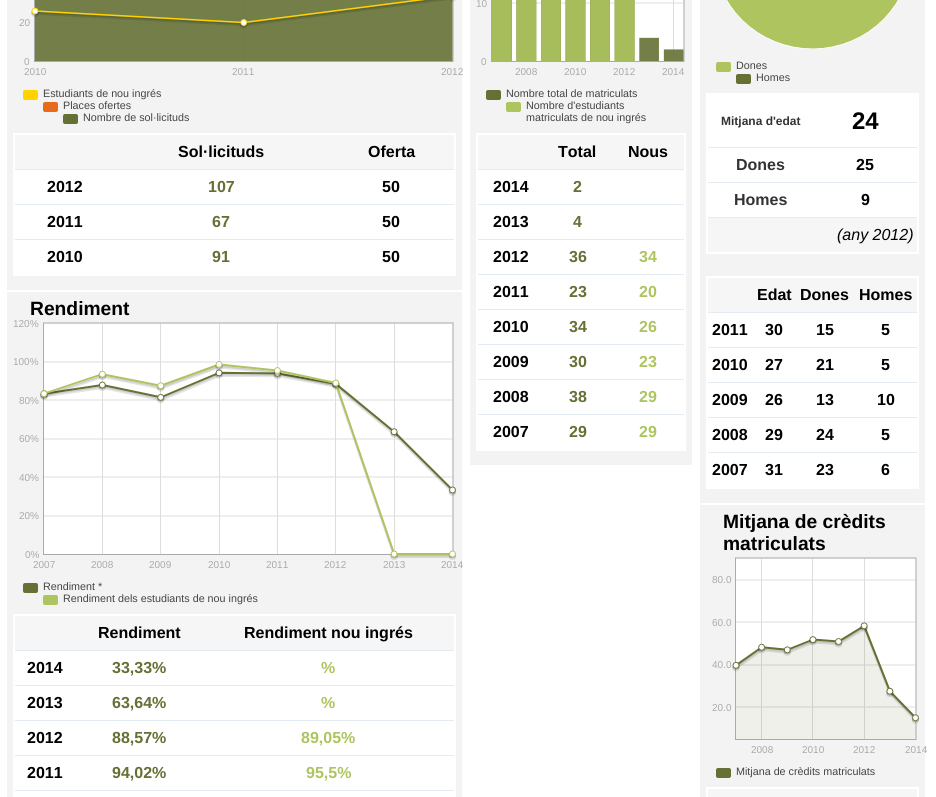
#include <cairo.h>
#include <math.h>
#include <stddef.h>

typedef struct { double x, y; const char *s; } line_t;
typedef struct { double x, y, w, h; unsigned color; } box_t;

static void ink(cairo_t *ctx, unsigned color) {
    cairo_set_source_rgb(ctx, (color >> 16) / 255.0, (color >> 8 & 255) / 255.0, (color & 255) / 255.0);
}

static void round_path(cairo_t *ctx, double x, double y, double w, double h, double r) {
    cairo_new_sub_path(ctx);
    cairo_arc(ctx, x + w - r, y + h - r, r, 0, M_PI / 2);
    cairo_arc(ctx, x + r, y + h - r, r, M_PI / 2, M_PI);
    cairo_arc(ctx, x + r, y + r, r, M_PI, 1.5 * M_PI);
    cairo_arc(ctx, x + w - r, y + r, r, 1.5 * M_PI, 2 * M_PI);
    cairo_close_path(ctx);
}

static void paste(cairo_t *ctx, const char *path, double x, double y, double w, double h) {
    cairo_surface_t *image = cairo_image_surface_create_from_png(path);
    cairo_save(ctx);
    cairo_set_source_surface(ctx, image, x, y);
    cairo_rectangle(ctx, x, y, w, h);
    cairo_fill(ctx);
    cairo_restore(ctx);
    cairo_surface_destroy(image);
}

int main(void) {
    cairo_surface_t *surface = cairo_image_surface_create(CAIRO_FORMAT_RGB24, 936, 797);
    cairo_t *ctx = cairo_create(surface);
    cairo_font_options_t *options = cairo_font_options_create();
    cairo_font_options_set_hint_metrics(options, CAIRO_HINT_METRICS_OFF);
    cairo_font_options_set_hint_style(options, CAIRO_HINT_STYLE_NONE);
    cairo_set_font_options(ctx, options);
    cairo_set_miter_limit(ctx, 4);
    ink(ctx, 0xFFFFFF);
    cairo_paint(ctx);
    ink(ctx, 0xF3F3F3);
    cairo_rectangle(ctx, 7, 0, 455, 290);
    cairo_fill(ctx);
    paste(ctx, "media/1.png", 31, 0, 425, 62);
    cairo_select_font_face(ctx, "Liberation Sans", CAIRO_FONT_SLANT_NORMAL, CAIRO_FONT_WEIGHT_NORMAL);
    cairo_set_font_size(ctx, 10);
    ink(ctx, 0xAAAAAA);
    {
        static const line_t items[] = {
            {19, 26, "20"},
            {24, 65, "0"},
            {24, 75, "2010"},
            {232, 75, "2011"},
            {441, 75, "2012"},
        };
        for (size_t i = 0; i < sizeof items / sizeof *items; i++) {
            cairo_move_to(ctx, items[i].x, items[i].y);
            cairo_show_text(ctx, items[i].s);
        }
    }
    ink(ctx, 0xFFD200);
    round_path(ctx, 23, 90, 15, 10, 2);
    cairo_fill(ctx);
    cairo_set_font_size(ctx, 10.75);
    ink(ctx, 0x444444);
    cairo_move_to(ctx, 43, 97);
    cairo_show_text(ctx, "Estudiants de nou ingrés");
    ink(ctx, 0xE86A1C);
    round_path(ctx, 43, 102, 15, 10, 2);
    cairo_fill(ctx);
    ink(ctx, 0x444444);
    cairo_move_to(ctx, 63, 109);
    cairo_show_text(ctx, "Places ofertes");
    ink(ctx, 0x647034);
    round_path(ctx, 63, 114, 15, 10, 2);
    cairo_fill(ctx);
    ink(ctx, 0x444444);
    cairo_move_to(ctx, 83, 121);
    cairo_show_text(ctx, "Nombre de sol·licituds");
    {
        static const box_t items[] = {
            {15, 170, 439, 104, 0xFFFFFF},
            {13, 133, 443, 2, 0xFFFFFF},
            {14, 169, 442, 1, 0xE4EBF3},
            {14, 204, 442, 1, 0xE4EBF3},
            {14, 239, 442, 1, 0xE4EBF3},
            {454, 133, 2, 143, 0xFFFFFF},
            {13, 274, 443, 2, 0xFFFFFF},
            {13, 133, 2, 143, 0xFFFFFF},
            {15, 135, 439, 34, 0xF6F6F6},
        };
        for (size_t i = 0; i < sizeof items / sizeof *items; i++) {
            ink(ctx, items[i].color);
            cairo_rectangle(ctx, items[i].x, items[i].y, items[i].w, items[i].h);
            cairo_fill(ctx);
        }
    }
    cairo_select_font_face(ctx, "Liberation Sans", CAIRO_FONT_SLANT_NORMAL, CAIRO_FONT_WEIGHT_BOLD);
    cairo_set_font_size(ctx, 16);
    ink(ctx, 0x000000);
    {
        static const line_t items[] = {
            {178, 157, "Sol·licituds"},
            {368, 157, "Oferta"},
            {47, 192, "2012"},
        };
        for (size_t i = 0; i < sizeof items / sizeof *items; i++) {
            cairo_move_to(ctx, items[i].x, items[i].y);
            cairo_show_text(ctx, items[i].s);
        }
    }
    ink(ctx, 0x647034);
    cairo_move_to(ctx, 208, 192);
    cairo_show_text(ctx, "107");
    ink(ctx, 0x000000);
    cairo_move_to(ctx, 382, 192);
    cairo_show_text(ctx, "50");
    cairo_move_to(ctx, 47, 227);
    cairo_show_text(ctx, "2011");
    ink(ctx, 0x647034);
    cairo_move_to(ctx, 212, 227);
    cairo_show_text(ctx, "67");
    ink(ctx, 0x000000);
    cairo_move_to(ctx, 382, 227);
    cairo_show_text(ctx, "50");
    cairo_move_to(ctx, 47, 262);
    cairo_show_text(ctx, "2010");
    ink(ctx, 0x647034);
    cairo_move_to(ctx, 212, 262);
    cairo_show_text(ctx, "91");
    ink(ctx, 0x000000);
    cairo_move_to(ctx, 382, 262);
    cairo_show_text(ctx, "50");
    ink(ctx, 0xF3F3F3);
    cairo_rectangle(ctx, 7, 292, 455, 505);
    cairo_fill(ctx);
    cairo_set_font_size(ctx, 19.25);
    ink(ctx, 0x000000);
    cairo_move_to(ctx, 30, 315);
    cairo_show_text(ctx, "Rendiment");
    cairo_select_font_face(ctx, "Liberation Sans", CAIRO_FONT_SLANT_NORMAL, CAIRO_FONT_WEIGHT_NORMAL);
    cairo_set_font_size(ctx, 10);
    ink(ctx, 0xAAAAAA);
    {
        static const line_t items[] = {
            {13, 327, "120%"},
            {13, 365, "100%"},
            {19, 404, "80%"},
            {19, 442, "60%"},
            {19, 481, "40%"},
            {19, 519, "20%"},
            {25, 558, "0%"},
            {33, 568, "2007"},
            {91, 568, "2008"},
            {149, 568, "2009"},
            {208, 568, "2010"},
            {266, 568, "2011"},
            {324, 568, "2012"},
            {383, 568, "2013"},
            {441, 568, "2014"},
        };
        for (size_t i = 0; i < sizeof items / sizeof *items; i++) {
            cairo_move_to(ctx, items[i].x, items[i].y);
            cairo_show_text(ctx, items[i].s);
        }
    }
    paste(ctx, "media/2.png", 40, 322, 416, 238);
    ink(ctx, 0x647034);
    round_path(ctx, 23, 583, 15, 10, 2);
    cairo_fill(ctx);
    cairo_set_font_size(ctx, 10.75);
    ink(ctx, 0x444444);
    cairo_move_to(ctx, 43, 590);
    cairo_show_text(ctx, "Rendiment *");
    ink(ctx, 0xAEC45F);
    round_path(ctx, 43, 595, 15, 10, 2);
    cairo_fill(ctx);
    ink(ctx, 0x444444);
    cairo_move_to(ctx, 63, 602);
    cairo_show_text(ctx, "Rendiment dels estudiants de nou ingrés");
    {
        static const box_t items[] = {
            {15, 651, 439, 146, 0xFFFFFF},
            {13, 614, 443, 2, 0xFFFFFF},
            {14, 650, 442, 1, 0xE4EBF3},
            {14, 685, 442, 1, 0xE4EBF3},
            {14, 720, 442, 1, 0xE4EBF3},
            {14, 755, 442, 1, 0xE4EBF3},
            {14, 790, 442, 1, 0xE4EBF3},
            {454, 614, 2, 183, 0xFFFFFF},
            {13, 614, 2, 183, 0xFFFFFF},
            {15, 616, 439, 34, 0xF6F6F6},
        };
        for (size_t i = 0; i < sizeof items / sizeof *items; i++) {
            ink(ctx, items[i].color);
            cairo_rectangle(ctx, items[i].x, items[i].y, items[i].w, items[i].h);
            cairo_fill(ctx);
        }
    }
    cairo_select_font_face(ctx, "Liberation Sans", CAIRO_FONT_SLANT_NORMAL, CAIRO_FONT_WEIGHT_BOLD);
    cairo_set_font_size(ctx, 16);
    ink(ctx, 0x000000);
    {
        static const line_t items[] = {
            {98, 638, "Rendiment"},
            {244, 638, "Rendiment nou ingrés"},
            {27, 673, "2014"},
        };
        for (size_t i = 0; i < sizeof items / sizeof *items; i++) {
            cairo_move_to(ctx, items[i].x, items[i].y);
            cairo_show_text(ctx, items[i].s);
        }
    }
    ink(ctx, 0x647034);
    cairo_move_to(ctx, 112, 673);
    cairo_show_text(ctx, "33,33%");
    ink(ctx, 0xAEC45F);
    cairo_move_to(ctx, 321, 673);
    cairo_show_text(ctx, "%");
    ink(ctx, 0x000000);
    cairo_move_to(ctx, 27, 708);
    cairo_show_text(ctx, "2013");
    ink(ctx, 0x647034);
    cairo_move_to(ctx, 112, 708);
    cairo_show_text(ctx, "63,64%");
    ink(ctx, 0xAEC45F);
    cairo_move_to(ctx, 321, 708);
    cairo_show_text(ctx, "%");
    ink(ctx, 0x000000);
    cairo_move_to(ctx, 27, 743);
    cairo_show_text(ctx, "2012");
    ink(ctx, 0x647034);
    cairo_move_to(ctx, 112, 743);
    cairo_show_text(ctx, "88,57%");
    ink(ctx, 0xAEC45F);
    cairo_move_to(ctx, 301, 743);
    cairo_show_text(ctx, "89,05%");
    ink(ctx, 0x000000);
    cairo_move_to(ctx, 27, 778);
    cairo_show_text(ctx, "2011");
    ink(ctx, 0x647034);
    cairo_move_to(ctx, 112, 778);
    cairo_show_text(ctx, "94,02%");
    ink(ctx, 0xAEC45F);
    cairo_move_to(ctx, 306, 778);
    cairo_show_text(ctx, "95,5%");
    ink(ctx, 0xF3F3F3);
    cairo_rectangle(ctx, 470, 0, 222, 465);
    cairo_fill(ctx);
    cairo_select_font_face(ctx, "Liberation Sans", CAIRO_FONT_SLANT_NORMAL, CAIRO_FONT_WEIGHT_NORMAL);
    cairo_set_font_size(ctx, 10);
    ink(ctx, 0xAAAAAA);
    {
        static const line_t items[] = {
            {476, 7, "10"},
            {481, 65, "0"},
            {515, 75, "2008"},
            {564, 75, "2010"},
            {613, 75, "2012"},
            {662, 75, "2014"},
        };
        for (size_t i = 0; i < sizeof items / sizeof *items; i++) {
            cairo_move_to(ctx, items[i].x, items[i].y);
            cairo_show_text(ctx, items[i].s);
        }
    }
    paste(ctx, "media/3.png", 491, 0, 194, 62);
    ink(ctx, 0x647034);
    round_path(ctx, 486, 90, 15, 10, 2);
    cairo_fill(ctx);
    cairo_set_font_size(ctx, 10.75);
    ink(ctx, 0x444444);
    cairo_move_to(ctx, 506, 97);
    cairo_show_text(ctx, "Nombre total de matriculats");
    ink(ctx, 0xAEC45F);
    round_path(ctx, 506, 102, 15, 10, 2);
    cairo_fill(ctx);
    ink(ctx, 0x444444);
    cairo_move_to(ctx, 526, 109);
    cairo_show_text(ctx, "Nombre d'estudiants");
    cairo_move_to(ctx, 526, 121);
    cairo_show_text(ctx, "matriculats de nou ingrés");
    {
        static const box_t items[] = {
            {478, 170, 206, 279, 0xFFFFFF},
            {476, 133, 210, 2, 0xFFFFFF},
            {477, 169, 209, 1, 0xE4EBF3},
            {477, 204, 209, 1, 0xE4EBF3},
            {477, 239, 209, 1, 0xE4EBF3},
            {477, 274, 209, 1, 0xE4EBF3},
            {477, 309, 209, 1, 0xE4EBF3},
            {477, 344, 209, 1, 0xE4EBF3},
            {477, 379, 209, 1, 0xE4EBF3},
            {477, 414, 209, 1, 0xE4EBF3},
            {684, 133, 2, 318, 0xFFFFFF},
            {476, 449, 210, 2, 0xFFFFFF},
            {476, 133, 2, 318, 0xFFFFFF},
            {478, 135, 206, 34, 0xF6F6F6},
        };
        for (size_t i = 0; i < sizeof items / sizeof *items; i++) {
            ink(ctx, items[i].color);
            cairo_rectangle(ctx, items[i].x, items[i].y, items[i].w, items[i].h);
            cairo_fill(ctx);
        }
    }
    cairo_select_font_face(ctx, "Liberation Sans", CAIRO_FONT_SLANT_NORMAL, CAIRO_FONT_WEIGHT_BOLD);
    cairo_set_font_size(ctx, 16);
    ink(ctx, 0x000000);
    {
        static const line_t items[] = {
            {558, 157, "Total"},
            {628, 157, "Nous"},
            {493, 192, "2014"},
        };
        for (size_t i = 0; i < sizeof items / sizeof *items; i++) {
            cairo_move_to(ctx, items[i].x, items[i].y);
            cairo_show_text(ctx, items[i].s);
        }
    }
    ink(ctx, 0x647034);
    cairo_move_to(ctx, 573, 192);
    cairo_show_text(ctx, "2");
    ink(ctx, 0x000000);
    cairo_move_to(ctx, 493, 227);
    cairo_show_text(ctx, "2013");
    ink(ctx, 0x647034);
    cairo_move_to(ctx, 573, 227);
    cairo_show_text(ctx, "4");
    ink(ctx, 0x000000);
    cairo_move_to(ctx, 493, 262);
    cairo_show_text(ctx, "2012");
    ink(ctx, 0x647034);
    cairo_move_to(ctx, 569, 262);
    cairo_show_text(ctx, "36");
    ink(ctx, 0xAEC45F);
    cairo_move_to(ctx, 639, 262);
    cairo_show_text(ctx, "34");
    ink(ctx, 0x000000);
    cairo_move_to(ctx, 493, 297);
    cairo_show_text(ctx, "2011");
    ink(ctx, 0x647034);
    cairo_move_to(ctx, 569, 297);
    cairo_show_text(ctx, "23");
    ink(ctx, 0xAEC45F);
    cairo_move_to(ctx, 639, 297);
    cairo_show_text(ctx, "20");
    ink(ctx, 0x000000);
    cairo_move_to(ctx, 493, 332);
    cairo_show_text(ctx, "2010");
    ink(ctx, 0x647034);
    cairo_move_to(ctx, 569, 332);
    cairo_show_text(ctx, "34");
    ink(ctx, 0xAEC45F);
    cairo_move_to(ctx, 639, 332);
    cairo_show_text(ctx, "26");
    ink(ctx, 0x000000);
    cairo_move_to(ctx, 493, 367);
    cairo_show_text(ctx, "2009");
    ink(ctx, 0x647034);
    cairo_move_to(ctx, 569, 367);
    cairo_show_text(ctx, "30");
    ink(ctx, 0xAEC45F);
    cairo_move_to(ctx, 639, 367);
    cairo_show_text(ctx, "23");
    ink(ctx, 0x000000);
    cairo_move_to(ctx, 493, 402);
    cairo_show_text(ctx, "2008");
    ink(ctx, 0x647034);
    cairo_move_to(ctx, 569, 402);
    cairo_show_text(ctx, "38");
    ink(ctx, 0xAEC45F);
    cairo_move_to(ctx, 639, 402);
    cairo_show_text(ctx, "29");
    ink(ctx, 0x000000);
    cairo_move_to(ctx, 493, 437);
    cairo_show_text(ctx, "2007");
    ink(ctx, 0x647034);
    cairo_move_to(ctx, 569, 437);
    cairo_show_text(ctx, "29");
    ink(ctx, 0xAEC45F);
    cairo_move_to(ctx, 639, 437);
    cairo_show_text(ctx, "29");
    ink(ctx, 0xF3F3F3);
    cairo_rectangle(ctx, 700, 0, 225, 503);
    cairo_fill(ctx);
    paste(ctx, "media/4.png", 727, 0, 171, 49);
    ink(ctx, 0xAEC45F);
    round_path(ctx, 716, 62, 15, 10, 2);
    cairo_fill(ctx);
    cairo_select_font_face(ctx, "Liberation Sans", CAIRO_FONT_SLANT_NORMAL, CAIRO_FONT_WEIGHT_NORMAL);
    cairo_set_font_size(ctx, 10.75);
    ink(ctx, 0x444444);
    cairo_move_to(ctx, 736, 69);
    cairo_show_text(ctx, "Dones");
    ink(ctx, 0x647034);
    round_path(ctx, 736, 74, 15, 10, 2);
    cairo_fill(ctx);
    ink(ctx, 0x444444);
    cairo_move_to(ctx, 756, 81);
    cairo_show_text(ctx, "Homes");
    {
        static const box_t items[] = {
            {708, 93, 209, 124, 0xFFFFFF},
            {707, 147, 212, 1, 0xE4EBF3},
            {707, 182, 212, 1, 0xE4EBF3},
            {707, 217, 212, 1, 0xE4EBF3},
            {917, 93, 2, 161, 0xFFFFFF},
            {706, 252, 213, 2, 0xFFFFFF},
            {706, 93, 2, 161, 0xFFFFFF},
        };
        for (size_t i = 0; i < sizeof items / sizeof *items; i++) {
            ink(ctx, items[i].color);
            cairo_rectangle(ctx, items[i].x, items[i].y, items[i].w, items[i].h);
            cairo_fill(ctx);
        }
    }
    cairo_select_font_face(ctx, "Liberation Sans", CAIRO_FONT_SLANT_NORMAL, CAIRO_FONT_WEIGHT_BOLD);
    cairo_set_font_size(ctx, 12);
    ink(ctx, 0x333333);
    cairo_move_to(ctx, 721, 125);
    cairo_show_text(ctx, "Mitjana d'edat");
    cairo_set_font_size(ctx, 24);
    ink(ctx, 0x000000);
    cairo_move_to(ctx, 852, 129);
    cairo_show_text(ctx, "24");
    cairo_set_font_size(ctx, 16);
    ink(ctx, 0x333333);
    cairo_move_to(ctx, 736, 170);
    cairo_show_text(ctx, "Dones");
    ink(ctx, 0x000000);
    cairo_move_to(ctx, 856, 170);
    cairo_show_text(ctx, "25");
    ink(ctx, 0x333333);
    cairo_move_to(ctx, 734, 205);
    cairo_show_text(ctx, "Homes");
    ink(ctx, 0x000000);
    cairo_move_to(ctx, 861, 205);
    cairo_show_text(ctx, "9");
    ink(ctx, 0xF6F6F6);
    cairo_rectangle(ctx, 708, 218, 209, 34);
    cairo_fill(ctx);
    cairo_select_font_face(ctx, "Liberation Sans", CAIRO_FONT_SLANT_ITALIC, CAIRO_FONT_WEIGHT_NORMAL);
    ink(ctx, 0x000000);
    cairo_move_to(ctx, 837, 240);
    cairo_show_text(ctx, "(any 2012)");
    {
        static const box_t items[] = {
            {708, 313, 209, 174, 0xFFFFFF},
            {706, 276, 213, 2, 0xFFFFFF},
            {707, 312, 212, 1, 0xE4EBF3},
            {707, 347, 212, 1, 0xE4EBF3},
            {707, 382, 212, 1, 0xE4EBF3},
            {707, 417, 212, 1, 0xE4EBF3},
            {707, 452, 212, 1, 0xE4EBF3},
            {917, 276, 2, 213, 0xFFFFFF},
            {706, 487, 213, 2, 0xFFFFFF},
            {706, 276, 2, 213, 0xFFFFFF},
            {708, 278, 209, 34, 0xF6F6F6},
        };
        for (size_t i = 0; i < sizeof items / sizeof *items; i++) {
            ink(ctx, items[i].color);
            cairo_rectangle(ctx, items[i].x, items[i].y, items[i].w, items[i].h);
            cairo_fill(ctx);
        }
    }
    cairo_select_font_face(ctx, "Liberation Sans", CAIRO_FONT_SLANT_NORMAL, CAIRO_FONT_WEIGHT_BOLD);
    ink(ctx, 0x000000);
    {
        static const line_t items[] = {
            {757, 300, "Edat"},
            {800, 300, "Dones"},
            {859, 300, "Homes"},
            {712, 335, "2011"},
            {765, 335, "30"},
            {816, 335, "15"},
            {881, 335, "5"},
            {712, 370, "2010"},
            {765, 370, "27"},
            {816, 370, "21"},
            {881, 370, "5"},
            {712, 405, "2009"},
            {765, 405, "26"},
            {816, 405, "13"},
            {877, 405, "10"},
            {712, 440, "2008"},
            {765, 440, "29"},
            {816, 440, "24"},
            {881, 440, "5"},
            {712, 475, "2007"},
            {765, 475, "31"},
            {816, 475, "23"},
            {881, 475, "6"},
        };
        for (size_t i = 0; i < sizeof items / sizeof *items; i++) {
            cairo_move_to(ctx, items[i].x, items[i].y);
            cairo_show_text(ctx, items[i].s);
        }
    }
    ink(ctx, 0xF3F3F3);
    cairo_rectangle(ctx, 700, 505, 225, 292);
    cairo_fill(ctx);
    cairo_set_font_size(ctx, 19.25);
    ink(ctx, 0x000000);
    cairo_move_to(ctx, 723, 528);
    cairo_show_text(ctx, "Mitjana de crèdits");
    cairo_move_to(ctx, 723, 550);
    cairo_show_text(ctx, "matriculats");
    paste(ctx, "media/5.png", 732, 557, 187, 183);
    cairo_select_font_face(ctx, "Liberation Sans", CAIRO_FONT_SLANT_NORMAL, CAIRO_FONT_WEIGHT_NORMAL);
    cairo_set_font_size(ctx, 10);
    ink(ctx, 0xAAAAAA);
    {
        static const line_t items[] = {
            {712, 583, "80.0"},
            {712, 626, "60.0"},
            {712, 668, "40.0"},
            {712, 711, "20.0"},
            {751, 753, "2008"},
            {802, 753, "2010"},
            {853, 753, "2012"},
            {905, 753, "2014"},
        };
        for (size_t i = 0; i < sizeof items / sizeof *items; i++) {
            cairo_move_to(ctx, items[i].x, items[i].y);
            cairo_show_text(ctx, items[i].s);
        }
    }
    ink(ctx, 0x647034);
    round_path(ctx, 716, 768, 15, 10, 2);
    cairo_fill(ctx);
    cairo_set_font_size(ctx, 10.75);
    ink(ctx, 0x444444);
    cairo_move_to(ctx, 736, 775);
    cairo_show_text(ctx, "Mitjana de crèdits matriculats");
    {
        static const box_t items[] = {
            {706, 787, 213, 2, 0xFFFFFF},
            {917, 787, 2, 10, 0xFFFFFF},
            {706, 787, 2, 10, 0xFFFFFF},
            {708, 789, 209, 8, 0xF6F6F6},
        };
        for (size_t i = 0; i < sizeof items / sizeof *items; i++) {
            ink(ctx, items[i].color);
            cairo_rectangle(ctx, items[i].x, items[i].y, items[i].w, items[i].h);
            cairo_fill(ctx);
        }
    }
    cairo_surface_write_to_png(surface, "image.png");
    cairo_font_options_destroy(options);
    cairo_destroy(ctx);
    cairo_surface_destroy(surface);
    return 0;
}
